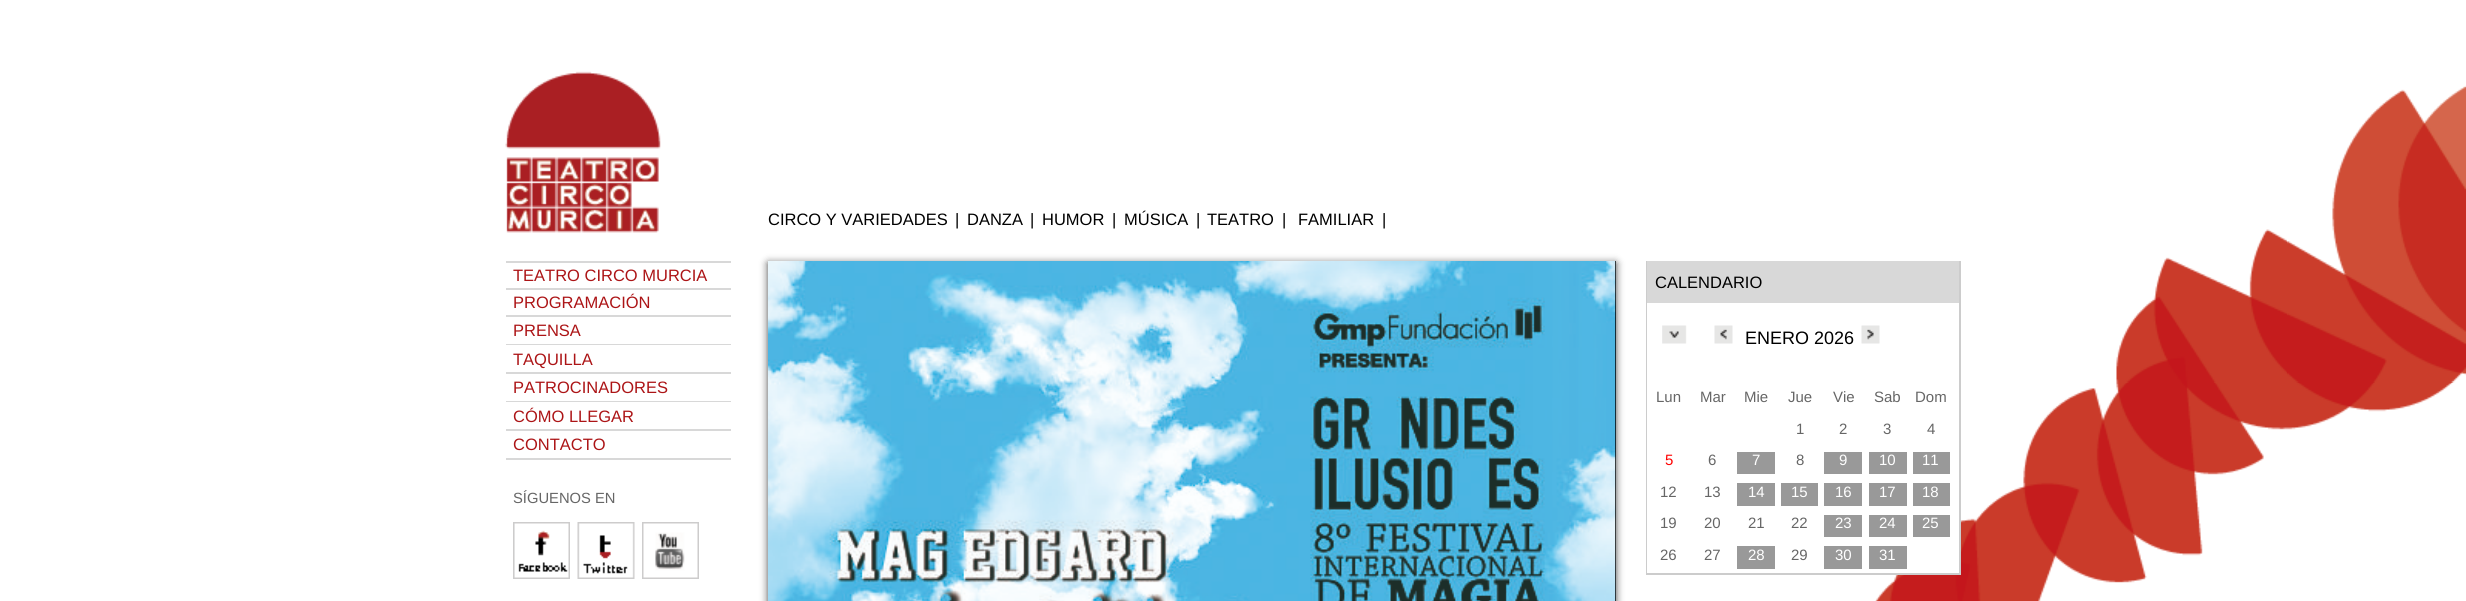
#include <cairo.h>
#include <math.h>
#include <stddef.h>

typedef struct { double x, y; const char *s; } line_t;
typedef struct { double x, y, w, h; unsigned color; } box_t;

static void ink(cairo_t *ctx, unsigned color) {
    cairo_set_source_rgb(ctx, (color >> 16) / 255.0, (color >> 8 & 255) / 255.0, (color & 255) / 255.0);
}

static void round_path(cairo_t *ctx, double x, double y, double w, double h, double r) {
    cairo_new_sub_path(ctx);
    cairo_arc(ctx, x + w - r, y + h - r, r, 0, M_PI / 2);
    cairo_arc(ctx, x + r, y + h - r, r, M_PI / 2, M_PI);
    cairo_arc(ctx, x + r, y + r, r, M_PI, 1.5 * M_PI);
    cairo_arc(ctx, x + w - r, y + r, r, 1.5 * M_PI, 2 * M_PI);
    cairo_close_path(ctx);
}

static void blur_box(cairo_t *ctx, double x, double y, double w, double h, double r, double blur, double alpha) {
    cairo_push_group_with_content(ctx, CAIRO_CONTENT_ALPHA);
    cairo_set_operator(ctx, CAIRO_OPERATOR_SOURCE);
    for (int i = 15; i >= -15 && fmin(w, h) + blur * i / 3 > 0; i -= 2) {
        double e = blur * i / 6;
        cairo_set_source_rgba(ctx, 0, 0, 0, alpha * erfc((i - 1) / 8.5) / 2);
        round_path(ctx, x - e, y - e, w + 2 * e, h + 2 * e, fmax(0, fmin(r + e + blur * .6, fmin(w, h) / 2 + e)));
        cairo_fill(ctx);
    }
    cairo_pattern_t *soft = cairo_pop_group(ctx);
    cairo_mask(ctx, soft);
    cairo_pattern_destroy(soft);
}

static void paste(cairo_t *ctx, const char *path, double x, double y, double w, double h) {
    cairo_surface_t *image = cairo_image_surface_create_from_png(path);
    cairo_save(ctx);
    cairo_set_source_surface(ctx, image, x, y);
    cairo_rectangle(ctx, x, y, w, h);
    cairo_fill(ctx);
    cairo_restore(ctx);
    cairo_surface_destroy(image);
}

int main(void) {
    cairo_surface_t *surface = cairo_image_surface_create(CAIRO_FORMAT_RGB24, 2466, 601);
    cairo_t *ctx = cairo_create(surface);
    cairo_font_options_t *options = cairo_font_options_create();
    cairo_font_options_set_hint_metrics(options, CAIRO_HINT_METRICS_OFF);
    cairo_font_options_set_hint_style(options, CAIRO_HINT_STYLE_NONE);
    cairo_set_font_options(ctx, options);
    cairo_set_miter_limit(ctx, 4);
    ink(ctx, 0xFFFFFF);
    cairo_paint(ctx);
    paste(ctx, "media/1.png", 1875, 85, 591, 516);
    paste(ctx, "media/2.png", 505, 71, 156, 162);
    cairo_select_font_face(ctx, "Liberation Sans", CAIRO_FONT_SLANT_NORMAL, CAIRO_FONT_WEIGHT_NORMAL);
    cairo_set_font_size(ctx, 16.5);
    ink(ctx, 0x000000);
    {
        static const line_t items[] = {
            {768, 225, "CIRCO Y VARIEDADES"},
            {955, 225, "|"},
            {967, 225, "DANZA"},
            {1030, 225, "|"},
            {1042, 225, "HUMOR"},
            {1112, 225, "|"},
            {1124, 225, "MÚSICA"},
            {1196, 225, "|"},
            {1207, 225, "TEATRO"},
            {1282, 225, "|"},
            {1298, 225, "FAMILIAR"},
            {1382, 225, "|"},
        };
        for (size_t i = 0; i < sizeof items / sizeof *items; i++) {
            cairo_move_to(ctx, items[i].x, items[i].y);
            cairo_show_text(ctx, items[i].s);
        }
    }
    ink(ctx, 0xD8D8D8);
    cairo_rectangle(ctx, 506, 261, 225, 2);
    cairo_fill(ctx);
    ink(ctx, 0xAC1416);
    cairo_move_to(ctx, 513, 281);
    cairo_show_text(ctx, "TEATRO CIRCO MURCIA");
    ink(ctx, 0xD8D8D8);
    cairo_rectangle(ctx, 506, 288, 225, 2);
    cairo_fill(ctx);
    ink(ctx, 0xAC1416);
    cairo_move_to(ctx, 513, 308);
    cairo_show_text(ctx, "PROGRAMACIÓN");
    ink(ctx, 0xD8D8D8);
    cairo_rectangle(ctx, 506, 315, 225, 2);
    cairo_fill(ctx);
    ink(ctx, 0xAC1416);
    cairo_move_to(ctx, 513, 336);
    cairo_show_text(ctx, "PRENSA");
    ink(ctx, 0xD8D8D8);
    cairo_rectangle(ctx, 506, 344, 225, 1);
    cairo_fill(ctx);
    ink(ctx, 0xAC1416);
    cairo_move_to(ctx, 513, 365);
    cairo_show_text(ctx, "TAQUILLA");
    ink(ctx, 0xD8D8D8);
    cairo_rectangle(ctx, 506, 372, 225, 2);
    cairo_fill(ctx);
    ink(ctx, 0xAC1416);
    cairo_move_to(ctx, 513, 393);
    cairo_show_text(ctx, "PATROCINADORES");
    ink(ctx, 0xD8D8D8);
    cairo_rectangle(ctx, 506, 401, 225, 1);
    cairo_fill(ctx);
    ink(ctx, 0xAC1416);
    cairo_move_to(ctx, 513, 422);
    cairo_show_text(ctx, "CÓMO LLEGAR");
    ink(ctx, 0xD8D8D8);
    cairo_rectangle(ctx, 506, 429, 225, 2);
    cairo_fill(ctx);
    ink(ctx, 0xAC1416);
    cairo_move_to(ctx, 513, 450);
    cairo_show_text(ctx, "CONTACTO");
    ink(ctx, 0xD8D8D8);
    cairo_rectangle(ctx, 506, 458, 225, 2);
    cairo_fill(ctx);
    cairo_set_font_size(ctx, 14.75);
    ink(ctx, 0x666666);
    cairo_move_to(ctx, 513, 503);
    cairo_show_text(ctx, "SÍGUENOS EN");
    paste(ctx, "media/3.png", 513, 522, 57, 57);
    paste(ctx, "media/4.png", 577, 522, 58, 57);
    paste(ctx, "media/5.png", 642, 522, 57, 57);
    ink(ctx, 0x4A4A4A);
    blur_box(ctx, 768, 263, 848, 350, 0, 4, 1);
    ink(ctx, 0x000000);
    cairo_rectangle(ctx, 1615, 261, 1, 340);
    cairo_fill(ctx);
    paste(ctx, "media/6.png", 768, 261, 848, 340);
    {
        static const box_t items[] = {
            {1959, 261, 2, 314, 0xCCCCCC},
            {1646, 573, 315, 2, 0xCCCCCC},
            {1646, 261, 2, 314, 0xCCCCCC},
            {1647, 261, 312, 42, 0xD8D8D8},
        };
        for (size_t i = 0; i < sizeof items / sizeof *items; i++) {
            ink(ctx, items[i].color);
            cairo_rectangle(ctx, items[i].x, items[i].y, items[i].w, items[i].h);
            cairo_fill(ctx);
        }
    }
    cairo_set_font_size(ctx, 16.5);
    ink(ctx, 0x000000);
    cairo_move_to(ctx, 1655, 288);
    cairo_show_text(ctx, "CALENDARIO");
    ink(ctx, 0xFFFFFF);
    cairo_rectangle(ctx, 1647, 303, 312, 270);
    cairo_fill(ctx);
    paste(ctx, "media/7.png", 1662, 325, 25, 19);
    paste(ctx, "media/8.png", 1714, 325, 19, 19);
    cairo_set_font_size(ctx, 18);
    ink(ctx, 0x000000);
    cairo_move_to(ctx, 1745, 344);
    cairo_show_text(ctx, "ENERO 2026");
    paste(ctx, "media/9.png", 1861, 325, 19, 19);
    cairo_set_font_size(ctx, 15);
    ink(ctx, 0x666666);
    {
        static const line_t items[] = {
            {1656, 402, "Lun"},
            {1700, 402, "Mar"},
            {1744, 402, "Mie"},
            {1788, 402, "Jue"},
            {1833, 402, "Vie"},
            {1874, 402, "Sab"},
            {1915, 402, "Dom"},
            {1796, 434, "1"},
            {1839, 434, "2"},
            {1883, 434, "3"},
            {1927, 434, "4"},
        };
        for (size_t i = 0; i < sizeof items / sizeof *items; i++) {
            cairo_move_to(ctx, items[i].x, items[i].y);
            cairo_show_text(ctx, items[i].s);
        }
    }
    ink(ctx, 0xFF0000);
    cairo_move_to(ctx, 1665, 465);
    cairo_show_text(ctx, "5");
    ink(ctx, 0x666666);
    cairo_move_to(ctx, 1708, 465);
    cairo_show_text(ctx, "6");
    ink(ctx, 0x999999);
    cairo_rectangle(ctx, 1737, 452, 38, 22);
    cairo_fill(ctx);
    ink(ctx, 0xFFFFFF);
    cairo_move_to(ctx, 1752, 465);
    cairo_show_text(ctx, "7");
    ink(ctx, 0x666666);
    cairo_move_to(ctx, 1796, 465);
    cairo_show_text(ctx, "8");
    ink(ctx, 0x999999);
    cairo_rectangle(ctx, 1824, 452, 38, 22);
    cairo_fill(ctx);
    ink(ctx, 0xFFFFFF);
    cairo_move_to(ctx, 1839, 465);
    cairo_show_text(ctx, "9");
    ink(ctx, 0x999999);
    cairo_rectangle(ctx, 1869, 452, 38, 22);
    cairo_fill(ctx);
    ink(ctx, 0xFFFFFF);
    cairo_move_to(ctx, 1879, 465);
    cairo_show_text(ctx, "10");
    ink(ctx, 0x999999);
    cairo_rectangle(ctx, 1913, 452, 37, 22);
    cairo_fill(ctx);
    ink(ctx, 0xFFFFFF);
    cairo_move_to(ctx, 1922, 465);
    cairo_show_text(ctx, "11");
    ink(ctx, 0x666666);
    cairo_move_to(ctx, 1660, 497);
    cairo_show_text(ctx, "12");
    cairo_move_to(ctx, 1704, 497);
    cairo_show_text(ctx, "13");
    ink(ctx, 0x999999);
    cairo_rectangle(ctx, 1737, 483, 38, 23);
    cairo_fill(ctx);
    ink(ctx, 0xFFFFFF);
    cairo_move_to(ctx, 1748, 497);
    cairo_show_text(ctx, "14");
    ink(ctx, 0x999999);
    cairo_rectangle(ctx, 1781, 483, 37, 23);
    cairo_fill(ctx);
    ink(ctx, 0xFFFFFF);
    cairo_move_to(ctx, 1791, 497);
    cairo_show_text(ctx, "15");
    ink(ctx, 0x999999);
    cairo_rectangle(ctx, 1824, 483, 38, 23);
    cairo_fill(ctx);
    ink(ctx, 0xFFFFFF);
    cairo_move_to(ctx, 1835, 497);
    cairo_show_text(ctx, "16");
    ink(ctx, 0x999999);
    cairo_rectangle(ctx, 1869, 483, 38, 23);
    cairo_fill(ctx);
    ink(ctx, 0xFFFFFF);
    cairo_move_to(ctx, 1879, 497);
    cairo_show_text(ctx, "17");
    ink(ctx, 0x999999);
    cairo_rectangle(ctx, 1913, 483, 37, 23);
    cairo_fill(ctx);
    ink(ctx, 0xFFFFFF);
    cairo_move_to(ctx, 1922, 497);
    cairo_show_text(ctx, "18");
    ink(ctx, 0x666666);
    {
        static const line_t items[] = {
            {1660, 528, "19"},
            {1704, 528, "20"},
            {1748, 528, "21"},
            {1791, 528, "22"},
        };
        for (size_t i = 0; i < sizeof items / sizeof *items; i++) {
            cairo_move_to(ctx, items[i].x, items[i].y);
            cairo_show_text(ctx, items[i].s);
        }
    }
    ink(ctx, 0x999999);
    cairo_rectangle(ctx, 1824, 515, 38, 22);
    cairo_fill(ctx);
    ink(ctx, 0xFFFFFF);
    cairo_move_to(ctx, 1835, 528);
    cairo_show_text(ctx, "23");
    ink(ctx, 0x999999);
    cairo_rectangle(ctx, 1869, 515, 38, 22);
    cairo_fill(ctx);
    ink(ctx, 0xFFFFFF);
    cairo_move_to(ctx, 1879, 528);
    cairo_show_text(ctx, "24");
    ink(ctx, 0x999999);
    cairo_rectangle(ctx, 1913, 515, 37, 22);
    cairo_fill(ctx);
    ink(ctx, 0xFFFFFF);
    cairo_move_to(ctx, 1922, 528);
    cairo_show_text(ctx, "25");
    ink(ctx, 0x666666);
    cairo_move_to(ctx, 1660, 560);
    cairo_show_text(ctx, "26");
    cairo_move_to(ctx, 1704, 560);
    cairo_show_text(ctx, "27");
    ink(ctx, 0x999999);
    cairo_rectangle(ctx, 1737, 546, 38, 23);
    cairo_fill(ctx);
    ink(ctx, 0xFFFFFF);
    cairo_move_to(ctx, 1748, 560);
    cairo_show_text(ctx, "28");
    ink(ctx, 0x666666);
    cairo_move_to(ctx, 1791, 560);
    cairo_show_text(ctx, "29");
    ink(ctx, 0x999999);
    cairo_rectangle(ctx, 1824, 546, 38, 23);
    cairo_fill(ctx);
    ink(ctx, 0xFFFFFF);
    cairo_move_to(ctx, 1835, 560);
    cairo_show_text(ctx, "30");
    ink(ctx, 0x999999);
    cairo_rectangle(ctx, 1869, 546, 38, 23);
    cairo_fill(ctx);
    ink(ctx, 0xFFFFFF);
    cairo_move_to(ctx, 1879, 560);
    cairo_show_text(ctx, "31");
    cairo_surface_write_to_png(surface, "image.png");
    cairo_font_options_destroy(options);
    cairo_destroy(ctx);
    cairo_surface_destroy(surface);
    return 0;
}
